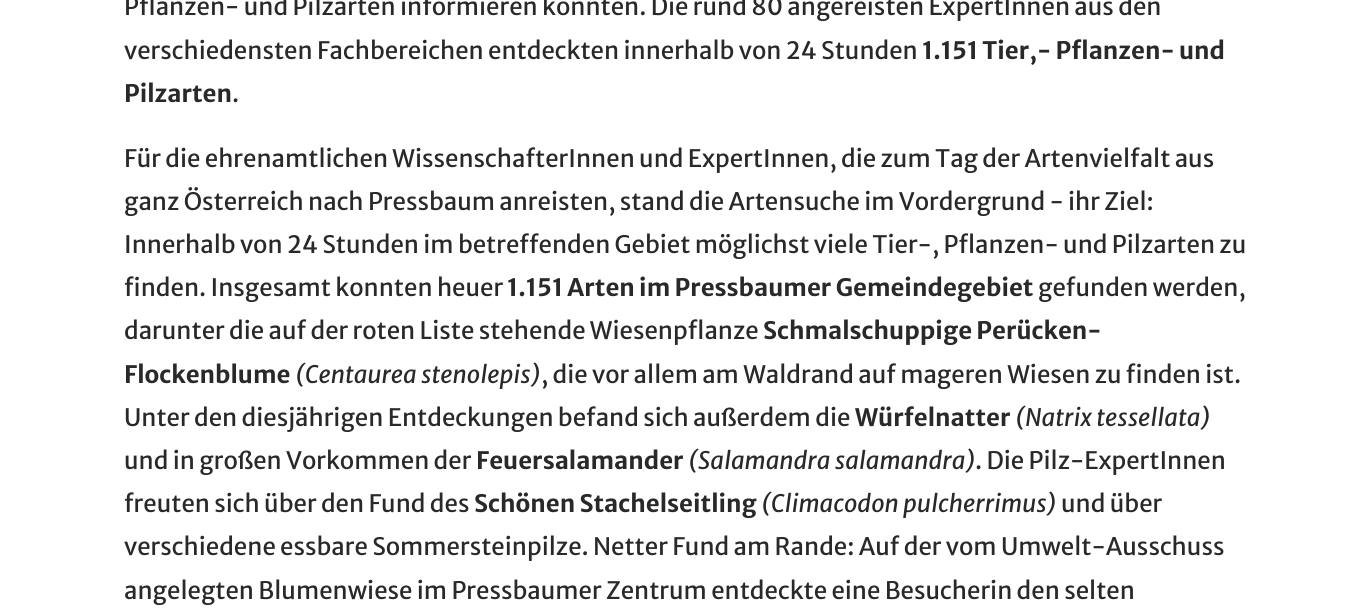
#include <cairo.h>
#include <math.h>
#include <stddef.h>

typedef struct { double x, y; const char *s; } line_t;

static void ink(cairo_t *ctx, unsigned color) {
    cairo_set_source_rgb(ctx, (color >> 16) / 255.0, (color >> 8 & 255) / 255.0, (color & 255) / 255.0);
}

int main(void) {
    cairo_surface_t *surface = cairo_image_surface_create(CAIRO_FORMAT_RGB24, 1372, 610);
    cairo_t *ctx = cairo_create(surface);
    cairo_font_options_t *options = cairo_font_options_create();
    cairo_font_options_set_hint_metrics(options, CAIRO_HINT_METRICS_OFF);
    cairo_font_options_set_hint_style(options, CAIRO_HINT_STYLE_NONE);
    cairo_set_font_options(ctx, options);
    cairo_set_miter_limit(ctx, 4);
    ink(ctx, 0xFFFFFF);
    cairo_paint(ctx);
    cairo_select_font_face(ctx, "Merriweather Sans", CAIRO_FONT_SLANT_NORMAL, CAIRO_FONT_WEIGHT_NORMAL);
    cairo_set_font_size(ctx, 24);
    ink(ctx, 0x2A2929);
    cairo_move_to(ctx, 124, 15);
    cairo_show_text(ctx, "Pflanzen- und Pilzarten informieren konnten. Die rund 80 angereisten ExpertInnen aus den");
    cairo_move_to(ctx, 124, 59);
    cairo_show_text(ctx, "verschiedensten Fachbereichen entdeckten innerhalb von 24 Stunden");
    cairo_select_font_face(ctx, "Merriweather Sans", CAIRO_FONT_SLANT_NORMAL, CAIRO_FONT_WEIGHT_BOLD);
    cairo_move_to(ctx, 922, 59);
    cairo_show_text(ctx, "1.151 Tier,- Pflanzen- und");
    cairo_move_to(ctx, 124, 102);
    cairo_show_text(ctx, "Pilzarten");
    cairo_select_font_face(ctx, "Merriweather Sans", CAIRO_FONT_SLANT_NORMAL, CAIRO_FONT_WEIGHT_NORMAL);
    {
        static const line_t items[] = {
            {232, 102, "."},
            {124, 167, "Für die ehrenamtlichen WissenschafterInnen und ExpertInnen, die zum Tag der Artenvielfalt aus"},
            {124, 210, "ganz Österreich nach Pressbaum anreisten, stand die Artensuche im Vordergrund - ihr Ziel:"},
            {124, 253, "Innerhalb von 24 Stunden im betreffenden Gebiet möglichst viele Tier-, Pflanzen- und Pilzarten zu"},
            {124, 296, "finden. Insgesamt konnten heuer"},
        };
        for (size_t i = 0; i < sizeof items / sizeof *items; i++) {
            cairo_move_to(ctx, items[i].x, items[i].y);
            cairo_show_text(ctx, items[i].s);
        }
    }
    cairo_select_font_face(ctx, "Merriweather Sans", CAIRO_FONT_SLANT_NORMAL, CAIRO_FONT_WEIGHT_BOLD);
    cairo_move_to(ctx, 507, 296);
    cairo_show_text(ctx, "1.151 Arten im Pressbaumer Gemeindegebiet");
    cairo_select_font_face(ctx, "Merriweather Sans", CAIRO_FONT_SLANT_NORMAL, CAIRO_FONT_WEIGHT_NORMAL);
    cairo_move_to(ctx, 1038, 296);
    cairo_show_text(ctx, "gefunden werden,");
    cairo_move_to(ctx, 124, 339);
    cairo_show_text(ctx, "darunter die auf der roten Liste stehende Wiesenpflanze");
    cairo_select_font_face(ctx, "Merriweather Sans", CAIRO_FONT_SLANT_NORMAL, CAIRO_FONT_WEIGHT_BOLD);
    cairo_move_to(ctx, 763, 339);
    cairo_show_text(ctx, "Schmalschuppige Perücken-");
    cairo_move_to(ctx, 124, 383);
    cairo_show_text(ctx, "Flockenblume");
    cairo_select_font_face(ctx, "Merriweather Sans", CAIRO_FONT_SLANT_ITALIC, CAIRO_FONT_WEIGHT_NORMAL);
    cairo_move_to(ctx, 295, 383);
    cairo_show_text(ctx, "(Centaurea stenolepis)");
    cairo_select_font_face(ctx, "Merriweather Sans", CAIRO_FONT_SLANT_NORMAL, CAIRO_FONT_WEIGHT_NORMAL);
    cairo_move_to(ctx, 541, 383);
    cairo_show_text(ctx, ", die vor allem am Waldrand auf mageren Wiesen zu finden ist.");
    cairo_move_to(ctx, 124, 426);
    cairo_show_text(ctx, "Unter den diesjährigen Entdeckungen befand sich außerdem die");
    cairo_select_font_face(ctx, "Merriweather Sans", CAIRO_FONT_SLANT_NORMAL, CAIRO_FONT_WEIGHT_BOLD);
    cairo_move_to(ctx, 855, 426);
    cairo_show_text(ctx, "Würfelnatter");
    cairo_select_font_face(ctx, "Merriweather Sans", CAIRO_FONT_SLANT_ITALIC, CAIRO_FONT_WEIGHT_NORMAL);
    cairo_move_to(ctx, 1015, 426);
    cairo_show_text(ctx, "(Natrix tessellata)");
    cairo_select_font_face(ctx, "Merriweather Sans", CAIRO_FONT_SLANT_NORMAL, CAIRO_FONT_WEIGHT_NORMAL);
    cairo_move_to(ctx, 124, 469);
    cairo_show_text(ctx, "und in großen Vorkommen der");
    cairo_select_font_face(ctx, "Merriweather Sans", CAIRO_FONT_SLANT_NORMAL, CAIRO_FONT_WEIGHT_BOLD);
    cairo_move_to(ctx, 476, 469);
    cairo_show_text(ctx, "Feuersalamander");
    cairo_select_font_face(ctx, "Merriweather Sans", CAIRO_FONT_SLANT_ITALIC, CAIRO_FONT_WEIGHT_NORMAL);
    cairo_move_to(ctx, 688, 469);
    cairo_show_text(ctx, "(Salamandra salamandra)");
    cairo_select_font_face(ctx, "Merriweather Sans", CAIRO_FONT_SLANT_NORMAL, CAIRO_FONT_WEIGHT_NORMAL);
    cairo_move_to(ctx, 975, 469);
    cairo_show_text(ctx, ". Die Pilz-ExpertInnen");
    cairo_move_to(ctx, 124, 512);
    cairo_show_text(ctx, "freuten sich über den Fund des");
    cairo_select_font_face(ctx, "Merriweather Sans", CAIRO_FONT_SLANT_NORMAL, CAIRO_FONT_WEIGHT_BOLD);
    cairo_move_to(ctx, 474, 512);
    cairo_show_text(ctx, "Schönen Stachelseitling");
    cairo_select_font_face(ctx, "Merriweather Sans", CAIRO_FONT_SLANT_ITALIC, CAIRO_FONT_WEIGHT_NORMAL);
    cairo_move_to(ctx, 761, 512);
    cairo_show_text(ctx, "(Climacodon pulcherrimus)");
    cairo_select_font_face(ctx, "Merriweather Sans", CAIRO_FONT_SLANT_NORMAL, CAIRO_FONT_WEIGHT_NORMAL);
    {
        static const line_t items[] = {
            {1061, 512, "und über"},
            {124, 555, "verschiedene essbare Sommersteinpilze. Netter Fund am Rande: Auf der vom Umwelt-Ausschuss"},
            {124, 599, "angelegten Blumenwiese im Pressbaumer Zentrum entdeckte eine Besucherin den selten"},
        };
        for (size_t i = 0; i < sizeof items / sizeof *items; i++) {
            cairo_move_to(ctx, items[i].x, items[i].y);
            cairo_show_text(ctx, items[i].s);
        }
    }
    cairo_surface_write_to_png(surface, "image.png");
    cairo_font_options_destroy(options);
    cairo_destroy(ctx);
    cairo_surface_destroy(surface);
    return 0;
}
